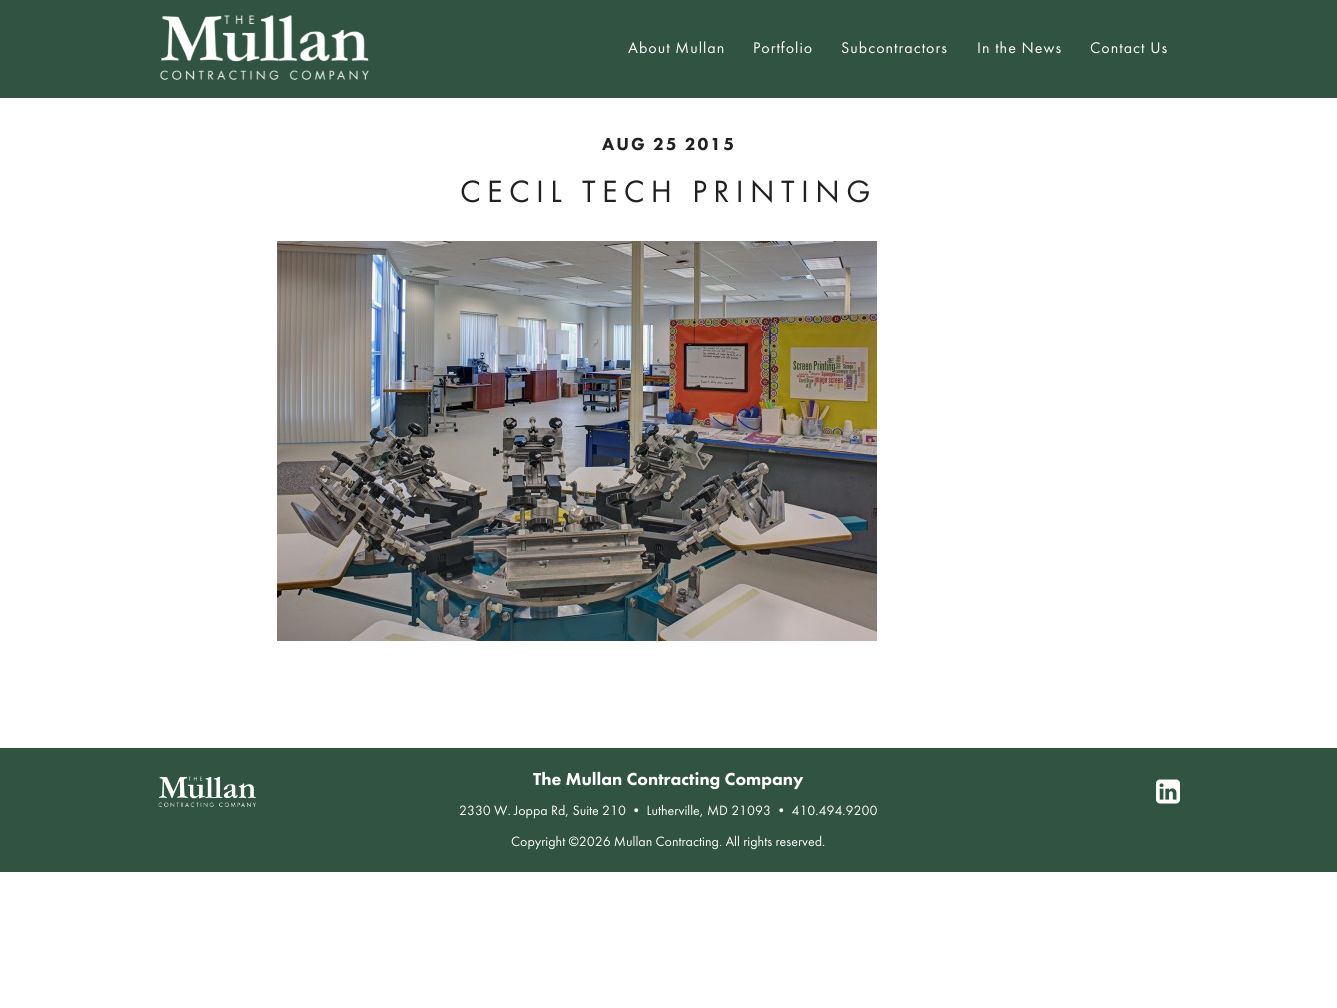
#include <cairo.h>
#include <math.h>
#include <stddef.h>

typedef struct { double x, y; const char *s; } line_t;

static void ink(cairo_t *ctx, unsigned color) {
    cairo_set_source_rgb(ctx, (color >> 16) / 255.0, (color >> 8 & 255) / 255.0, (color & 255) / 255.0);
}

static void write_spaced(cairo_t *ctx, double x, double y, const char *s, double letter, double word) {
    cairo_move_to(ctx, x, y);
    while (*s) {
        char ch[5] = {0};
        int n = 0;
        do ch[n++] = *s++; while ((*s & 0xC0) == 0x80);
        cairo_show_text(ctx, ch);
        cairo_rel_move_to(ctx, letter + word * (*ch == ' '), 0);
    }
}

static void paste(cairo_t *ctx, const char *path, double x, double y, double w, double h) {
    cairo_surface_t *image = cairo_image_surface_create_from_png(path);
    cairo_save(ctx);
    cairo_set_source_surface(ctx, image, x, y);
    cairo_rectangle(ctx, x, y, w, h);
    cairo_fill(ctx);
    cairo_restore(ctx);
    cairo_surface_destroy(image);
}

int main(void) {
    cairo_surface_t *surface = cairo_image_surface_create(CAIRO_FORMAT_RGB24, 1337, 1008);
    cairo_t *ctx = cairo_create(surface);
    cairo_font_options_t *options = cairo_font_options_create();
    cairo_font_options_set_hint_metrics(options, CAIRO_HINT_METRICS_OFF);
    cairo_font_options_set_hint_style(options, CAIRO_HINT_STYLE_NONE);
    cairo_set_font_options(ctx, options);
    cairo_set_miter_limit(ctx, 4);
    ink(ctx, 0xFFFFFF);
    cairo_paint(ctx);
    ink(ctx, 0x305342);
    cairo_rectangle(ctx, 0, 0, 1337, 98);
    cairo_fill(ctx);
    paste(ctx, "media/1.png", 160, 15, 209, 65);
    cairo_select_font_face(ctx, "Futura PT", CAIRO_FONT_SLANT_NORMAL, CAIRO_FONT_WEIGHT_NORMAL);
    cairo_set_font_size(ctx, 16);
    ink(ctx, 0xFFFFFF);
    {
        static const line_t items[] = {
            {628, 53, "About Mullan"},
            {753, 53, "Portfolio"},
            {841, 53, "Subcontractors"},
            {977, 53, "In the News"},
            {1090, 53, "Contact Us"},
        };
        for (size_t i = 0; i < sizeof items / sizeof *items; i++) {
            write_spaced(ctx, items[i].x, items[i].y, items[i].s, 1, 0);
        }
    }
    cairo_select_font_face(ctx, "Futura PT Black", CAIRO_FONT_SLANT_NORMAL, CAIRO_FONT_WEIGHT_NORMAL);
    cairo_set_font_size(ctx, 18);
    ink(ctx, 0x212121);
    write_spaced(ctx, 602, 150, "AUG 25 2015", 2, 0);
    cairo_select_font_face(ctx, "Futura PT", CAIRO_FONT_SLANT_NORMAL, CAIRO_FONT_WEIGHT_NORMAL);
    cairo_set_font_size(ctx, 32);
    write_spaced(ctx, 460, 202, "CECIL TECH PRINTING", 6.4, 0);
    paste(ctx, "media/2.png", 277, 241, 600, 400);
    ink(ctx, 0x305342);
    cairo_rectangle(ctx, 0, 748, 1337, 124);
    cairo_fill(ctx);
    paste(ctx, "media/3.png", 158, 776, 98, 32);
    cairo_select_font_face(ctx, "Futura PT Black", CAIRO_FONT_SLANT_NORMAL, CAIRO_FONT_WEIGHT_NORMAL);
    cairo_set_font_size(ctx, 18);
    ink(ctx, 0xFFFFFF);
    cairo_move_to(ctx, 533, 785);
    cairo_show_text(ctx, "The Mullan Contracting Company");
    cairo_select_font_face(ctx, "Futura PT", CAIRO_FONT_SLANT_NORMAL, CAIRO_FONT_WEIGHT_NORMAL);
    cairo_set_font_size(ctx, 14);
    cairo_move_to(ctx, 459, 815);
    cairo_show_text(ctx, "2330 W. Joppa Rd, Suite 210 • Lutherville, MD 21093 • 410.494.9200");
    paste(ctx, "media/4.png", 1156, 779, 24, 25);
    cairo_move_to(ctx, 511, 846);
    cairo_show_text(ctx, "Copyright ©2026 Mullan Contracting. All rights reserved.");
    cairo_surface_write_to_png(surface, "image.png");
    cairo_font_options_destroy(options);
    cairo_destroy(ctx);
    cairo_surface_destroy(surface);
    return 0;
}
